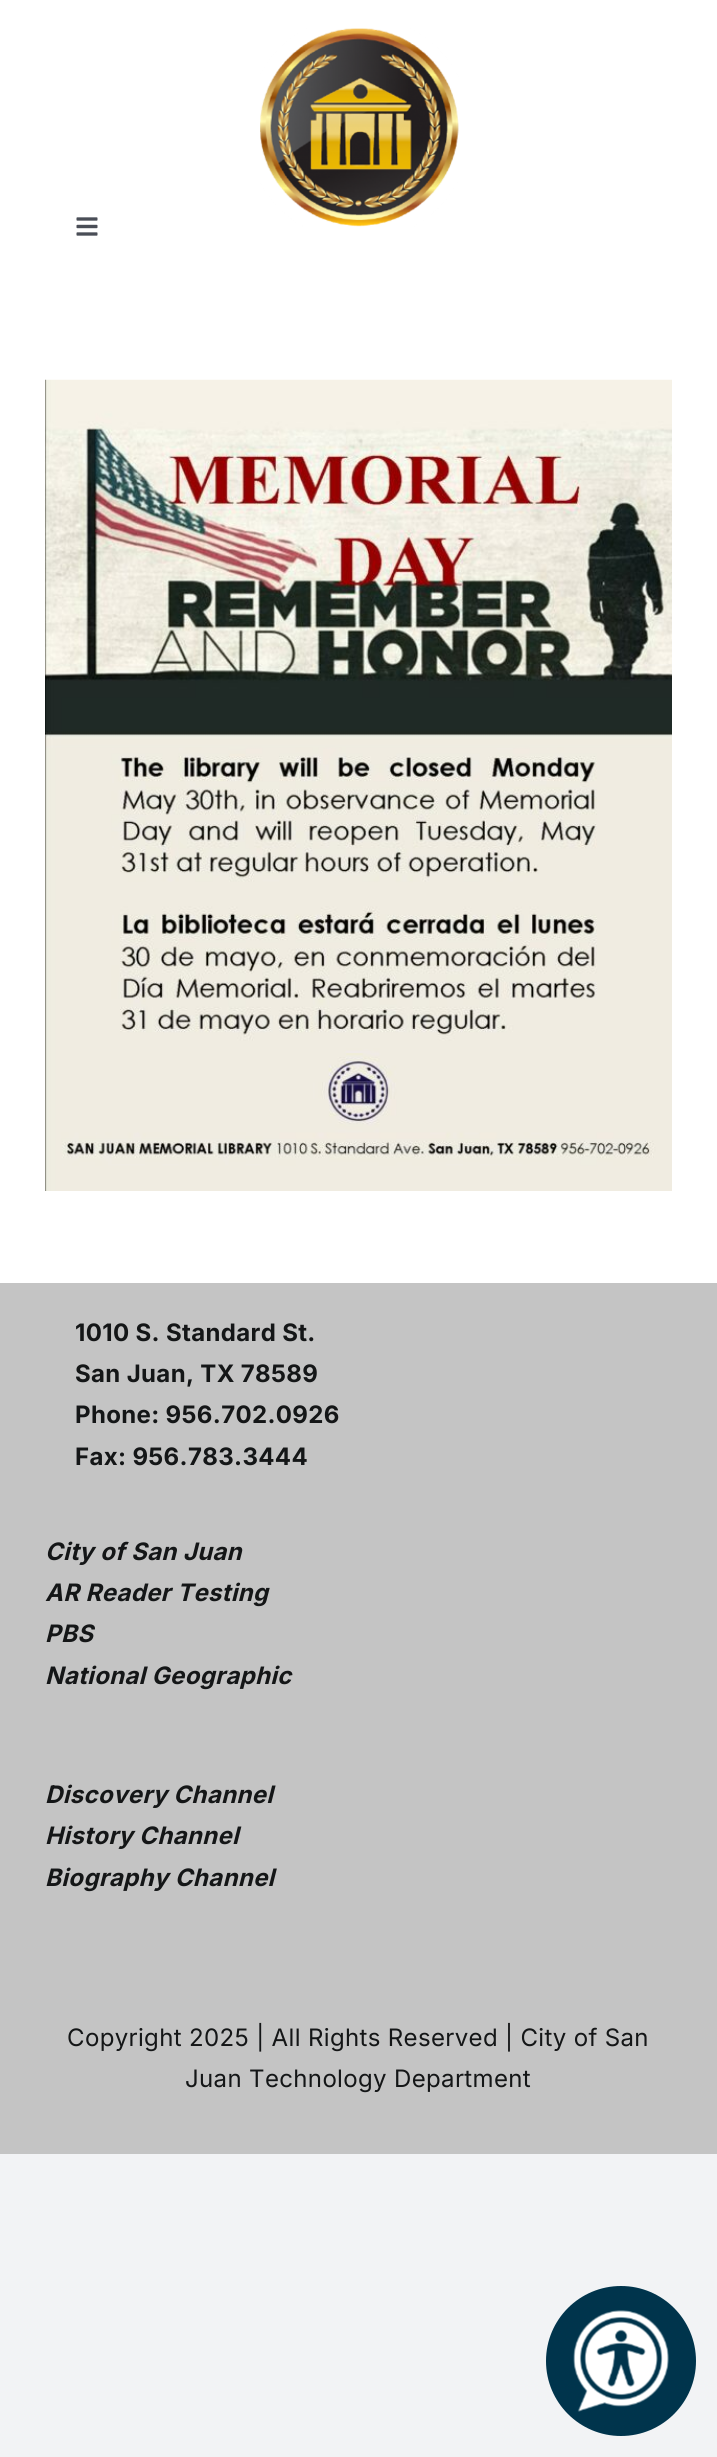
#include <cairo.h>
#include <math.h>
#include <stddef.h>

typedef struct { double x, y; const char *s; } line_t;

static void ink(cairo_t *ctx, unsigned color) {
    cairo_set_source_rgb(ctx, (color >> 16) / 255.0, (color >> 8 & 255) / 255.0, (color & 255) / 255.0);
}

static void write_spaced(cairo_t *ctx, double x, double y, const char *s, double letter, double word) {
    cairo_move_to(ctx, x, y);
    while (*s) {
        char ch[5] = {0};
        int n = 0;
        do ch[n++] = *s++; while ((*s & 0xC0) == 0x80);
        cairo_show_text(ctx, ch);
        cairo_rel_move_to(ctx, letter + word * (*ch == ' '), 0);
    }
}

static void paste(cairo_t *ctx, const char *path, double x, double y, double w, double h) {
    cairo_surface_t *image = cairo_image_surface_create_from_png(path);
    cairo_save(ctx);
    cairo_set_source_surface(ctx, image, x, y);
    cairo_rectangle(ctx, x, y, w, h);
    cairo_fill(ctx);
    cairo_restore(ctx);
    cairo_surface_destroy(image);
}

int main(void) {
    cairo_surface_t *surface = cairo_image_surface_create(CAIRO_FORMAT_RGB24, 717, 2457);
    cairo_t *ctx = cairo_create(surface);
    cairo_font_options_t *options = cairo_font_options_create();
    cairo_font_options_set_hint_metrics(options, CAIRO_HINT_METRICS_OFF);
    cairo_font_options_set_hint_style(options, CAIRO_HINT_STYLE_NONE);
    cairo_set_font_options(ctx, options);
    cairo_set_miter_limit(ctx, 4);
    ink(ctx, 0xF2F3F5);
    cairo_paint(ctx);
    ink(ctx, 0xFFFFFF);
    cairo_rectangle(ctx, 0, 0, 717, 1283);
    cairo_fill(ctx);
    paste(ctx, "media/1.png", 76, 217, 22, 19);
    paste(ctx, "media/2.png", 260, 28, 199, 199);
    paste(ctx, "media/3.png", 45, 379, 627, 812);
    ink(ctx, 0xC4C4C4);
    cairo_rectangle(ctx, 0, 1283, 717, 871);
    cairo_fill(ctx);
    cairo_select_font_face(ctx, "Inter", CAIRO_FONT_SLANT_NORMAL, CAIRO_FONT_WEIGHT_BOLD);
    cairo_set_font_size(ctx, 24);
    ink(ctx, 0x141617);
    {
        static const line_t items[] = {
            {75, 1341, "1010 S. Standard St."},
            {75, 1382, "San Juan, TX 78589"},
            {75, 1423, "Phone: 956.702.0926"},
            {75, 1465, "Fax: 956.783.3444"},
        };
        for (size_t i = 0; i < sizeof items / sizeof *items; i++) {
            write_spaced(ctx, items[i].x, items[i].y, items[i].s, 0.35, 0);
        }
    }
    cairo_select_font_face(ctx, "Inter", CAIRO_FONT_SLANT_ITALIC, CAIRO_FONT_WEIGHT_BOLD);
    {
        static const line_t items[] = {
            {45, 1560, "City of San Juan"},
            {45, 1601, "AR Reader Testing"},
            {45, 1642, "PBS"},
            {45, 1684, "National Geographic"},
            {45, 1803, "Discovery Channel"},
            {45, 1844, "History Channel"},
            {45, 1886, "Biography Channel"},
        };
        for (size_t i = 0; i < sizeof items / sizeof *items; i++) {
            write_spaced(ctx, items[i].x, items[i].y, items[i].s, 0.35, 0);
        }
    }
    cairo_select_font_face(ctx, "Inter", CAIRO_FONT_SLANT_NORMAL, CAIRO_FONT_WEIGHT_NORMAL);
    write_spaced(ctx, 67, 2046, "Copyright 2025 | All Rights Reserved | City of San", 0.35, 0);
    write_spaced(ctx, 185, 2087, "Juan Technology Department", 0.35, 0);
    ink(ctx, 0x00344C);
    cairo_new_path(ctx);
    cairo_arc(ctx, 621, 2361, 75, 0, 2 * M_PI);
    cairo_fill(ctx);
    paste(ctx, "media/4.png", 573, 2310, 96, 102);
    cairo_surface_write_to_png(surface, "image.png");
    cairo_font_options_destroy(options);
    cairo_destroy(ctx);
    cairo_surface_destroy(surface);
    return 0;
}
